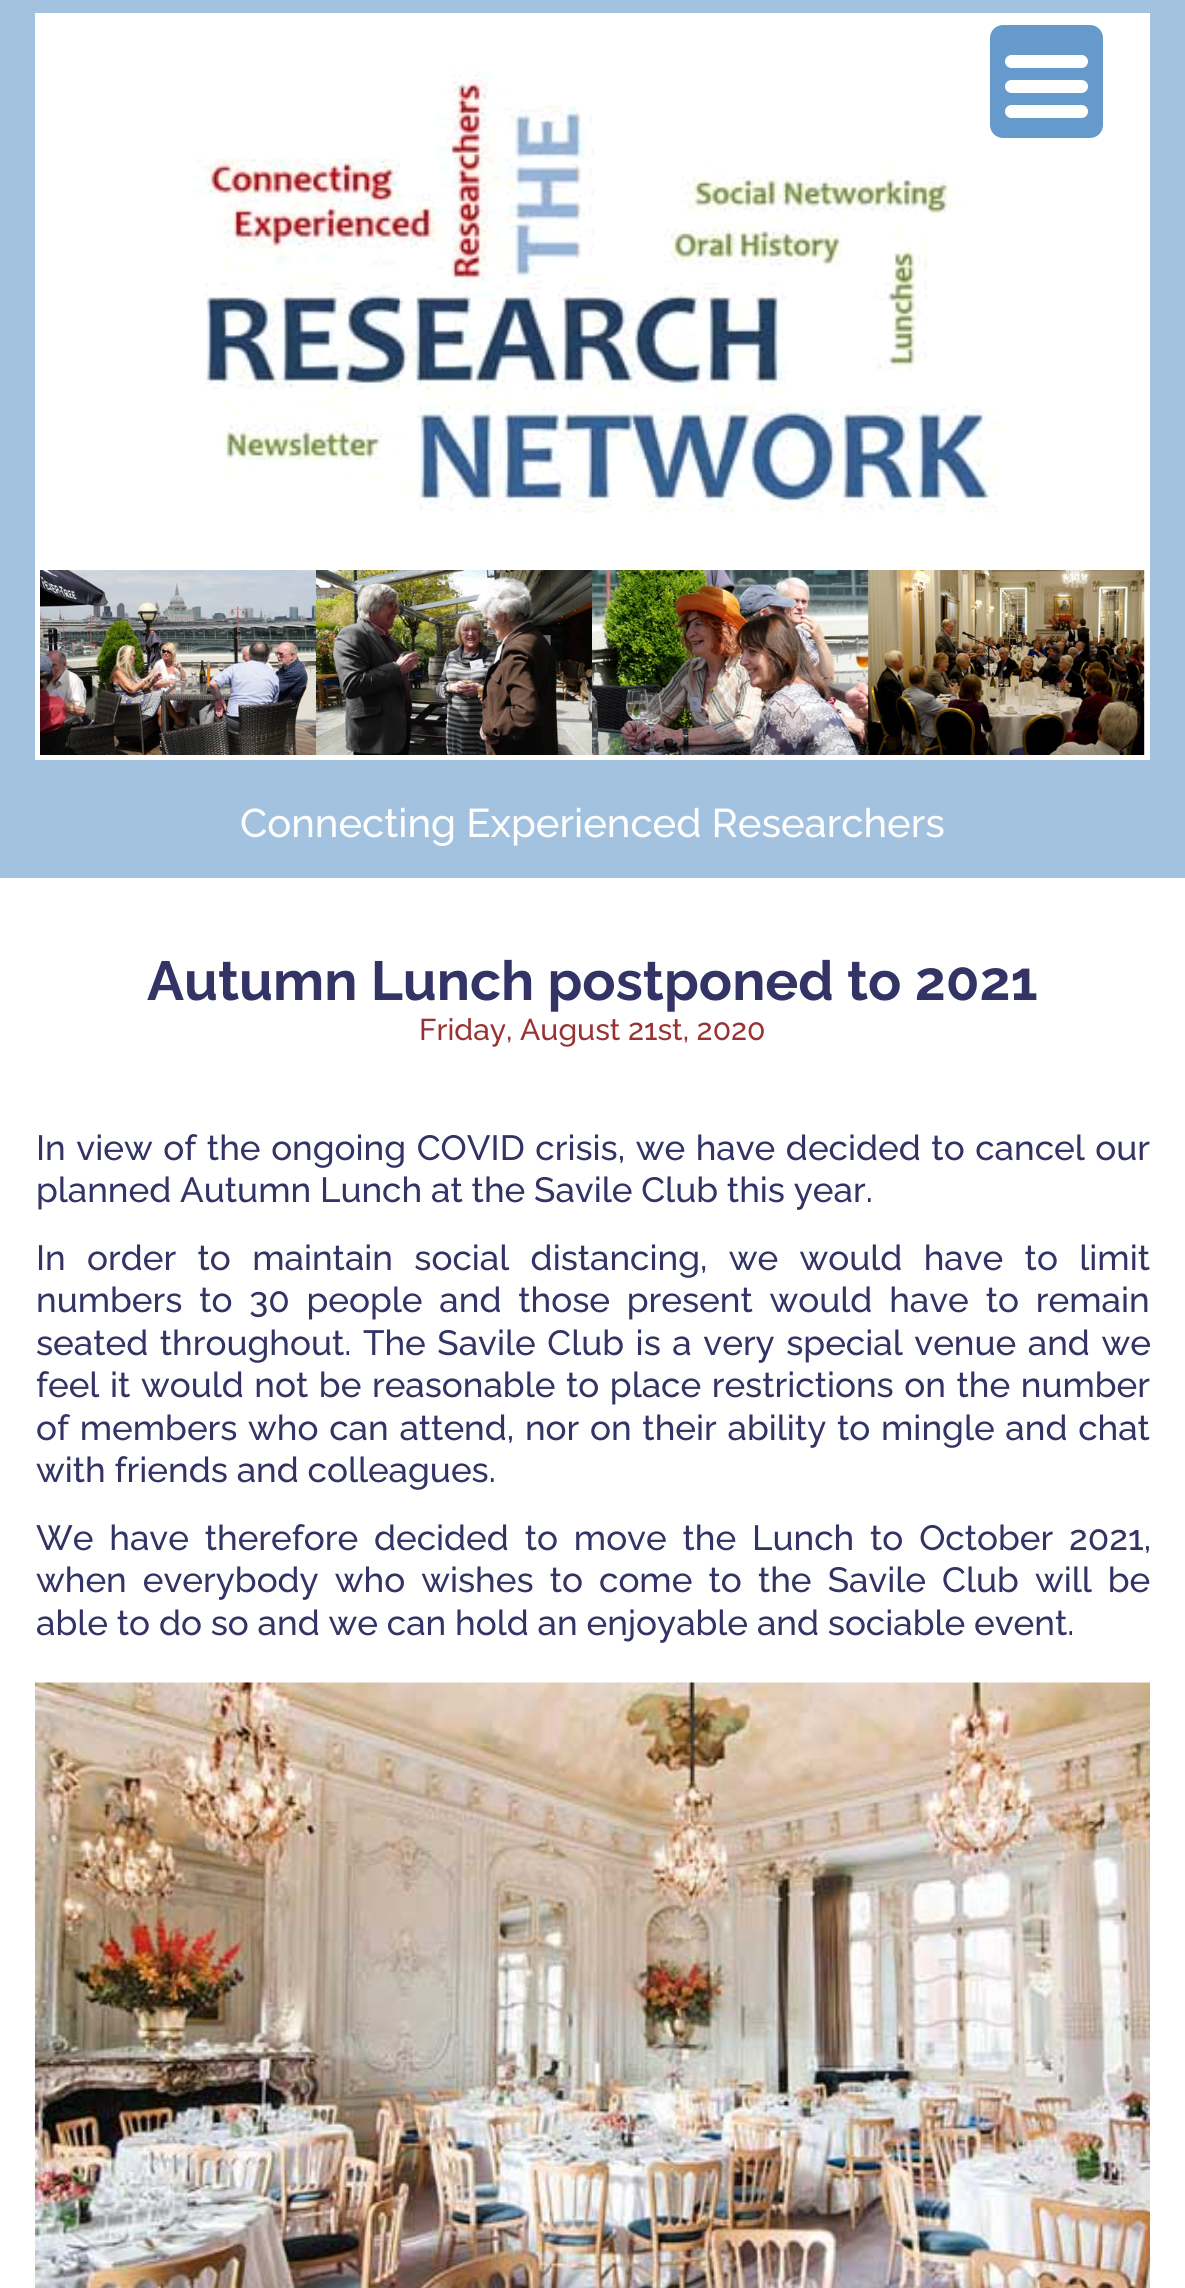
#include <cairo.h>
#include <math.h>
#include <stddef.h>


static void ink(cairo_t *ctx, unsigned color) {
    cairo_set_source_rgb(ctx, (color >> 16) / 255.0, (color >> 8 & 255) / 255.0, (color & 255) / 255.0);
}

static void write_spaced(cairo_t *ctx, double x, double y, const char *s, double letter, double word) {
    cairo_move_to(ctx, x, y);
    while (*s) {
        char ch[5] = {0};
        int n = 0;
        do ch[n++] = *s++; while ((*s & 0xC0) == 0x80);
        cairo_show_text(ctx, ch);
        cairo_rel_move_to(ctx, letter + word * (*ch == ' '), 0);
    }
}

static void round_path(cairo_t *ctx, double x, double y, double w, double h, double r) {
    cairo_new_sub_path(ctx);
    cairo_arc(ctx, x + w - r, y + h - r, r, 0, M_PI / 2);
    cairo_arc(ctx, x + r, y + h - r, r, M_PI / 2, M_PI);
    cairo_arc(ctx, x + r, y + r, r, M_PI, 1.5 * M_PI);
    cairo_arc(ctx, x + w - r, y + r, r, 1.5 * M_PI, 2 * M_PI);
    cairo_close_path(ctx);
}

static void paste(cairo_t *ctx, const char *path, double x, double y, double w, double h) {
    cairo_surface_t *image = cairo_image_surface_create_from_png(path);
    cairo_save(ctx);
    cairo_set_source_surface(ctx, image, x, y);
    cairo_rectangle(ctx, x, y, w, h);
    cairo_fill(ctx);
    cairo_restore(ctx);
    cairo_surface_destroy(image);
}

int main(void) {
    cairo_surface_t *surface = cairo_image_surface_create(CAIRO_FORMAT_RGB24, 1185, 2288);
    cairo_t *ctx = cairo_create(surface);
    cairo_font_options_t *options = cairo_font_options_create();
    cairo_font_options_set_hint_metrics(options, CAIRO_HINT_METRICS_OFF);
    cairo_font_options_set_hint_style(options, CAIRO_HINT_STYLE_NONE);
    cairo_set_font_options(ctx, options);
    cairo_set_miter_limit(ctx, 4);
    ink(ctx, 0xFFFFFF);
    cairo_paint(ctx);
    ink(ctx, 0xA3C2E0);
    cairo_rectangle(ctx, 0, 0, 1185, 878);
    cairo_fill(ctx);
    ink(ctx, 0xFFFFFF);
    cairo_rectangle(ctx, 35, 13, 1115, 747);
    cairo_fill(ctx);
    paste(ctx, "media/1.png", 192, 71, 807, 442);
    paste(ctx, "media/2.png", 40, 570, 1105, 185);
    cairo_select_font_face(ctx, "Raleway Medium", CAIRO_FONT_SLANT_NORMAL, CAIRO_FONT_WEIGHT_NORMAL);
    cairo_set_font_size(ctx, 40);
    cairo_move_to(ctx, 240, 837);
    cairo_show_text(ctx, "Connecting Experienced Researchers");
    ink(ctx, 0x6699CC);
    round_path(ctx, 990, 25, 113, 113, 13);
    cairo_fill(ctx);
    ink(ctx, 0xFFFFFF);
    round_path(ctx, 1005, 80, 83, 13, 6.5);
    cairo_fill(ctx);
    round_path(ctx, 1005, 55, 83, 13, 6.5);
    cairo_fill(ctx);
    round_path(ctx, 1005, 105, 83, 13, 6.5);
    cairo_fill(ctx);
    cairo_select_font_face(ctx, "Raleway", CAIRO_FONT_SLANT_NORMAL, CAIRO_FONT_WEIGHT_BOLD);
    cairo_set_font_size(ctx, 55);
    ink(ctx, 0x333366);
    cairo_move_to(ctx, 147, 1000);
    cairo_show_text(ctx, "Autumn Lunch postponed to 2021");
    cairo_select_font_face(ctx, "Raleway Medium", CAIRO_FONT_SLANT_NORMAL, CAIRO_FONT_WEIGHT_NORMAL);
    cairo_set_font_size(ctx, 30);
    ink(ctx, 0x993333);
    cairo_move_to(ctx, 419, 1040);
    cairo_show_text(ctx, "Friday, August 21st, 2020");
    cairo_set_font_size(ctx, 35);
    ink(ctx, 0x333366);
    write_spaced(ctx, 36, 1160, "In view of the ongoing COVID crisis, we have decided to cancel our", 0, 1.75);
    cairo_move_to(ctx, 36, 1202);
    cairo_show_text(ctx, "planned Autumn Lunch at the Savile Club this year.");
    write_spaced(ctx, 36, 1270, "In order to maintain social distancing, we would have to limit", 0, 12.5);
    write_spaced(ctx, 36, 1312, "numbers to 30 people and those present would have to remain", 0, 8);
    write_spaced(ctx, 36, 1355, "seated throughout. The Savile Club is a very special venue and we", 0, 2.75);
    write_spaced(ctx, 36, 1397, "feel it would not be reasonable to place restrictions on the number", 0, 1.75);
    write_spaced(ctx, 36, 1440, "of members who can attend, nor on their ability to mingle and chat", 0, 1.9);
    cairo_move_to(ctx, 36, 1482);
    cairo_show_text(ctx, "with friends and colleagues.");
    write_spaced(ctx, 36, 1550, "We have therefore decided to move the Lunch to October 2021,", 0, 7);
    write_spaced(ctx, 36, 1592, "when everybody who wishes to come to the Savile Club will be", 0, 7.25);
    cairo_move_to(ctx, 36, 1635);
    cairo_show_text(ctx, "able to do so and we can hold an enjoyable and sociable event.");
    paste(ctx, "media/3.png", 35, 1682, 1115, 606);
    cairo_surface_write_to_png(surface, "image.png");
    cairo_font_options_destroy(options);
    cairo_destroy(ctx);
    cairo_surface_destroy(surface);
    return 0;
}
